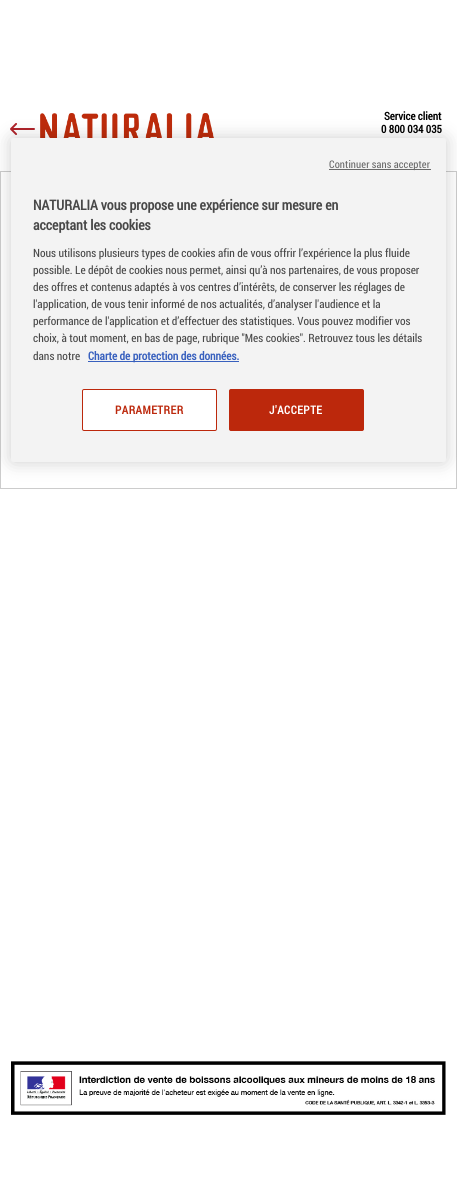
#include <cairo.h>
#include <math.h>
#include <stddef.h>

typedef struct { double x, y; const char *s; } line_t;

static void ink(cairo_t *ctx, unsigned color) {
    cairo_set_source_rgb(ctx, (color >> 16) / 255.0, (color >> 8 & 255) / 255.0, (color & 255) / 255.0);
}

static void write_spaced(cairo_t *ctx, double x, double y, const char *s, double letter, double word) {
    cairo_move_to(ctx, x, y);
    while (*s) {
        char ch[5] = {0};
        int n = 0;
        do ch[n++] = *s++; while ((*s & 0xC0) == 0x80);
        cairo_show_text(ctx, ch);
        cairo_rel_move_to(ctx, letter + word * (*ch == ' '), 0);
    }
}

static void round_path(cairo_t *ctx, double x, double y, double w, double h, double r) {
    cairo_new_sub_path(ctx);
    cairo_arc(ctx, x + w - r, y + h - r, r, 0, M_PI / 2);
    cairo_arc(ctx, x + r, y + h - r, r, M_PI / 2, M_PI);
    cairo_arc(ctx, x + r, y + r, r, M_PI, 1.5 * M_PI);
    cairo_arc(ctx, x + w - r, y + r, r, 1.5 * M_PI, 2 * M_PI);
    cairo_close_path(ctx);
}

static void blur_box(cairo_t *ctx, double x, double y, double w, double h, double r, double blur, double alpha) {
    cairo_push_group_with_content(ctx, CAIRO_CONTENT_ALPHA);
    cairo_set_operator(ctx, CAIRO_OPERATOR_SOURCE);
    for (int i = 15; i >= -15 && fmin(w, h) + blur * i / 3 > 0; i -= 2) {
        double e = blur * i / 6;
        cairo_set_source_rgba(ctx, 0, 0, 0, alpha * erfc((i - 1) / 8.5) / 2);
        round_path(ctx, x - e, y - e, w + 2 * e, h + 2 * e, fmax(0, fmin(r + e + blur * .6, fmin(w, h) / 2 + e)));
        cairo_fill(ctx);
    }
    cairo_pattern_t *soft = cairo_pop_group(ctx);
    cairo_mask(ctx, soft);
    cairo_pattern_destroy(soft);
}

static void paste(cairo_t *ctx, const char *path, double x, double y, double w, double h) {
    cairo_surface_t *image = cairo_image_surface_create_from_png(path);
    cairo_save(ctx);
    cairo_set_source_surface(ctx, image, x, y);
    cairo_rectangle(ctx, x, y, w, h);
    cairo_fill(ctx);
    cairo_restore(ctx);
    cairo_surface_destroy(image);
}

int main(void) {
    cairo_surface_t *surface = cairo_image_surface_create(CAIRO_FORMAT_RGB24, 457, 1200);
    cairo_t *ctx = cairo_create(surface);
    cairo_font_options_t *options = cairo_font_options_create();
    cairo_font_options_set_hint_metrics(options, CAIRO_HINT_METRICS_OFF);
    cairo_font_options_set_hint_style(options, CAIRO_HINT_STYLE_NONE);
    cairo_set_font_options(ctx, options);
    cairo_set_miter_limit(ctx, 4);
    ink(ctx, 0xFFFFFF);
    cairo_paint(ctx);
    paste(ctx, "media/1.png", 10, 123, 25, 12);
    paste(ctx, "media/2.png", 40, 113, 174, 25);
    cairo_select_font_face(ctx, "Roboto Condensed", CAIRO_FONT_SLANT_NORMAL, CAIRO_FONT_WEIGHT_BOLD);
    cairo_set_font_size(ctx, 11);
    ink(ctx, 0x000000);
    cairo_move_to(ctx, 384, 120);
    cairo_show_text(ctx, "Service client");
    cairo_move_to(ctx, 381, 133);
    cairo_show_text(ctx, "0 800 034 035");
    cairo_rectangle(ctx, 0.5, 171.5, 456, 317);
    ink(ctx, 0xCCCCCC);
    cairo_set_line_width(ctx, 1);
    cairo_stroke(ctx);
    paste(ctx, "media/3.png", 11, 1061, 435, 54);
    ink(ctx, 0x000000);
    blur_box(ctx, 11, 138, 435, 324, 2.5, 9, 0.2);
    ink(ctx, 0xF3F3F3);
    round_path(ctx, 11, 138, 435, 324, 2.5);
    cairo_fill(ctx);
    ink(ctx, 0x696969);
    cairo_rectangle(ctx, 329, 169, 102, 1);
    cairo_fill(ctx);
    cairo_select_font_face(ctx, "Roboto Condensed", CAIRO_FONT_SLANT_NORMAL, CAIRO_FONT_WEIGHT_NORMAL);
    cairo_set_font_size(ctx, 10.5);
    write_spaced(ctx, 329, 168, "Continuer sans accepter", 0.1, 0);
    cairo_select_font_face(ctx, "Roboto Condensed", CAIRO_FONT_SLANT_NORMAL, CAIRO_FONT_WEIGHT_BOLD);
    cairo_set_font_size(ctx, 14);
    ink(ctx, 0x484848);
    cairo_move_to(ctx, 33, 210);
    cairo_show_text(ctx, "NATURALIA vous propose une expérience sur mesure en");
    cairo_move_to(ctx, 33, 230);
    cairo_show_text(ctx, "acceptant les cookies");
    cairo_select_font_face(ctx, "Roboto Condensed", CAIRO_FONT_SLANT_NORMAL, CAIRO_FONT_WEIGHT_NORMAL);
    cairo_set_font_size(ctx, 11.4);
    {
        static const line_t items[] = {
            {33, 257, "Nous utilisons plusieurs types de cookies afin de vous offrir l’expérience la plus fluide"},
            {33, 274, "possible. Le dépôt de cookies nous permet, ainsi qu’à nos partenaires, de vous proposer"},
            {33, 291, "des offres et contenus adaptés à vos centres d’intérêts, de conserver les réglages de"},
            {33, 308, "l'application, de vous tenir informé de nos actualités, d’analyser l'audience et la"},
        };
        for (size_t i = 0; i < sizeof items / sizeof *items; i++) {
            cairo_move_to(ctx, items[i].x, items[i].y);
            cairo_show_text(ctx, items[i].s);
        }
    }
    write_spaced(ctx, 33, 325, "performance de l'application et d’effectuer des statistiques. Vous pouvez modifier vos", 0, -0.1);
    cairo_move_to(ctx, 33, 342);
    cairo_show_text(ctx, "choix, à tout moment, en bas de page, rubrique \"Mes cookies\". Retrouvez tous les détails");
    cairo_move_to(ctx, 33, 360);
    cairo_show_text(ctx, "dans notre");
    ink(ctx, 0x3860BE);
    cairo_rectangle(ctx, 88, 361, 151, 1);
    cairo_fill(ctx);
    cairo_select_font_face(ctx, "Roboto Condensed", CAIRO_FONT_SLANT_NORMAL, CAIRO_FONT_WEIGHT_BOLD);
    cairo_move_to(ctx, 88, 360);
    cairo_show_text(ctx, "Charte de protection des données.");
    ink(ctx, 0xFFFFFF);
    round_path(ctx, 82.5, 389.5, 134, 41, 1.5);
    cairo_fill_preserve(ctx);
    ink(ctx, 0xBC280C);
    cairo_stroke(ctx);
    write_spaced(ctx, 115, 414, "PARAMETRER", 0.5, 0);
    round_path(ctx, 229.5, 389.5, 134, 41, 1.5);
    cairo_fill_preserve(ctx);
    cairo_stroke(ctx);
    ink(ctx, 0xFFFFFF);
    write_spaced(ctx, 269, 414, "J'ACCEPTE", 0.5, 0);
    cairo_surface_write_to_png(surface, "image.png");
    cairo_font_options_destroy(options);
    cairo_destroy(ctx);
    cairo_surface_destroy(surface);
    return 0;
}
